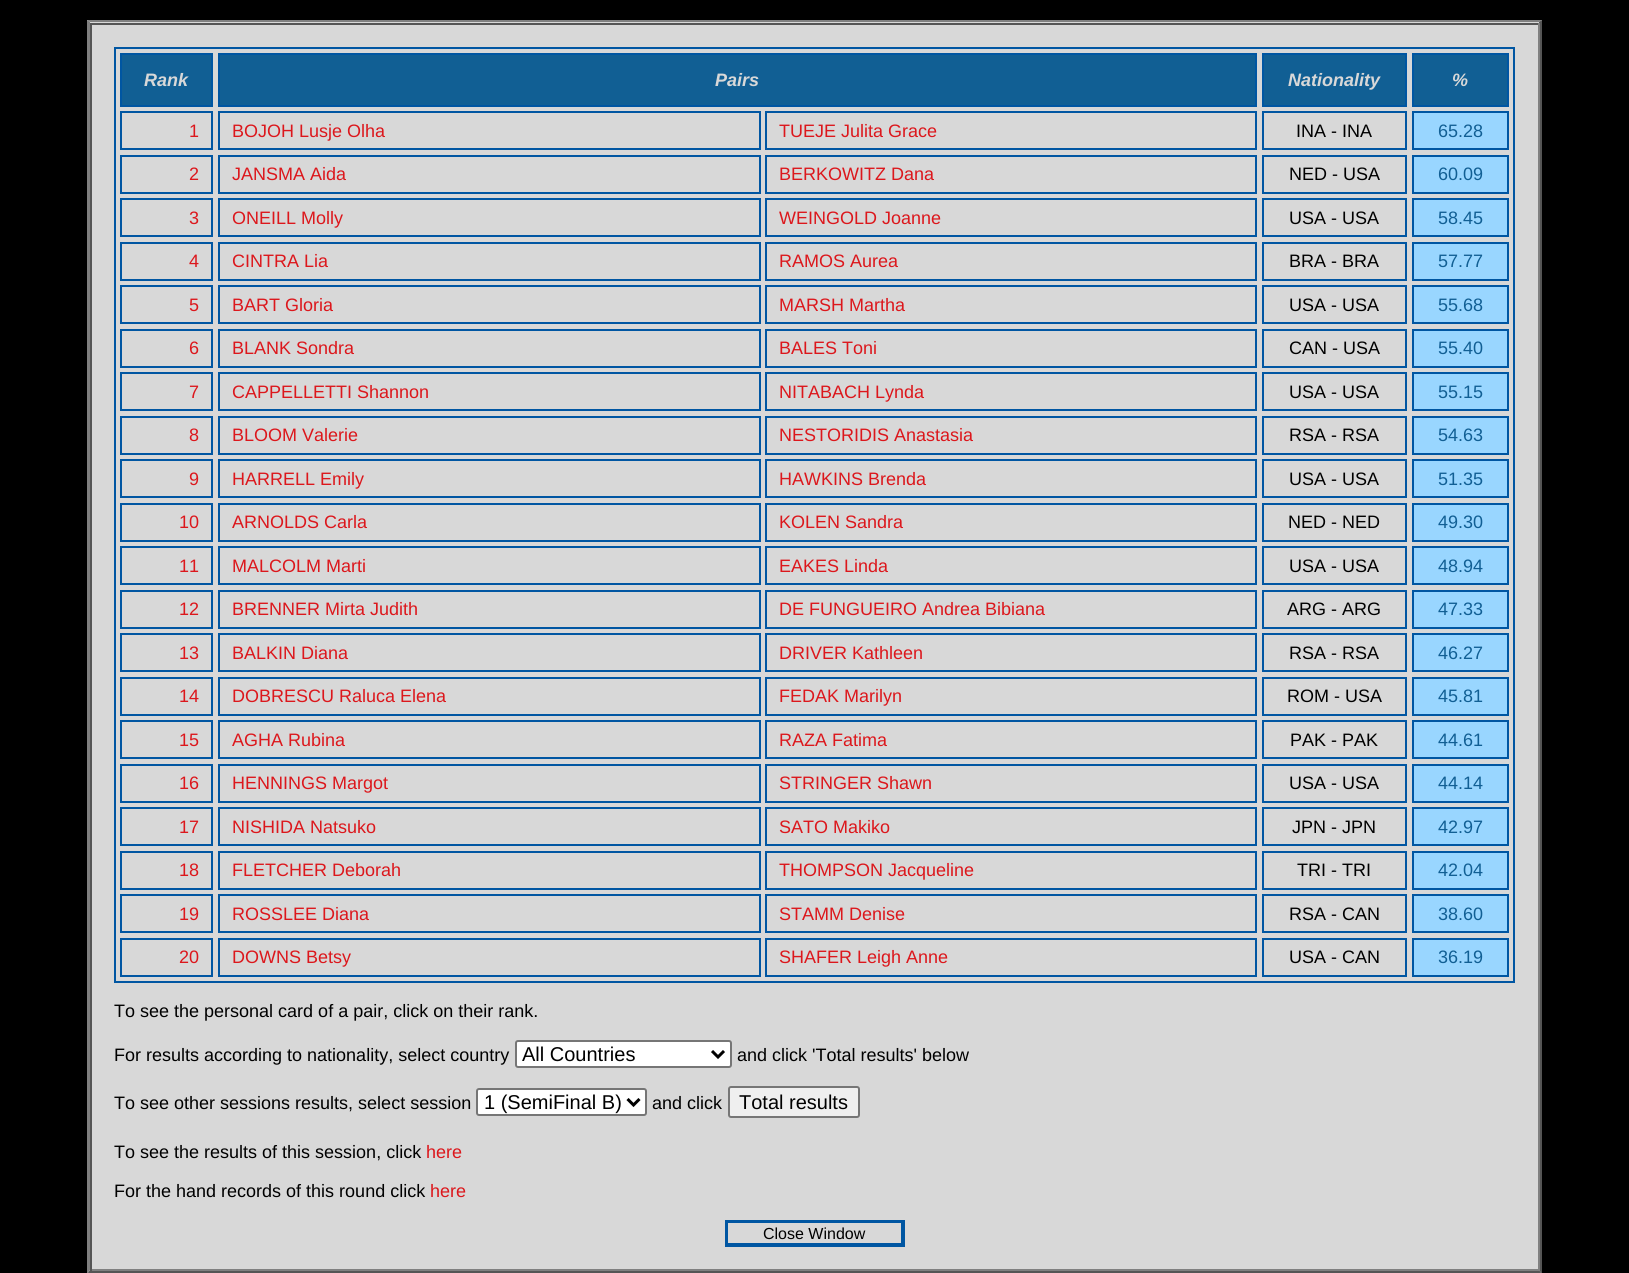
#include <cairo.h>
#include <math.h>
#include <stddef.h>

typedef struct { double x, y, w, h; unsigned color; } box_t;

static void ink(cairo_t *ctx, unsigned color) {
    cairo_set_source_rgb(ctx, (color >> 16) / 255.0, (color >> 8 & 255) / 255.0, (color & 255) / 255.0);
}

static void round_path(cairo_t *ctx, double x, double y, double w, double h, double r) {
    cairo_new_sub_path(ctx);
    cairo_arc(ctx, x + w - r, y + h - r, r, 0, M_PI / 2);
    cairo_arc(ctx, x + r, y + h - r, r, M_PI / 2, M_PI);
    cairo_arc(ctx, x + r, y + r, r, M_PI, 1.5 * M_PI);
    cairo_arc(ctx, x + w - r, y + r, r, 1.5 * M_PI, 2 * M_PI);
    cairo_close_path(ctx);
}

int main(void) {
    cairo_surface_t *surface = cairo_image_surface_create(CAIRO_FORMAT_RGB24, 1629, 1273);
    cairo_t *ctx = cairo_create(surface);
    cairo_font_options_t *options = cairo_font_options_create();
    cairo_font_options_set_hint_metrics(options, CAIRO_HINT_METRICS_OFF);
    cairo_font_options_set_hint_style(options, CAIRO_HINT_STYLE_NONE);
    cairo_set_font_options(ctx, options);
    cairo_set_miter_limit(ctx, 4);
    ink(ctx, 0x000000);
    cairo_paint(ctx);
    ink(ctx, 0xD8D8D8);
    cairo_rectangle(ctx, 87, 20, 1455, 1253);
    cairo_fill(ctx);
    ink(ctx, 0x808080);
    cairo_new_path(ctx);
    cairo_move_to(ctx, 87, 20);
    cairo_line_to(ctx, 1542, 20);
    cairo_line_to(ctx, 1539, 22);
    cairo_line_to(ctx, 90, 22);
    cairo_close_path(ctx);
    cairo_fill(ctx);
    ink(ctx, 0x555555);
    cairo_new_path(ctx);
    cairo_move_to(ctx, 1542, 20);
    cairo_line_to(ctx, 1542, 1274);
    cairo_line_to(ctx, 1539, 1270);
    cairo_line_to(ctx, 1539, 22);
    cairo_close_path(ctx);
    cairo_fill(ctx);
    cairo_new_path(ctx);
    cairo_move_to(ctx, 1542, 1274);
    cairo_line_to(ctx, 87, 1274);
    cairo_line_to(ctx, 90, 1270);
    cairo_line_to(ctx, 1539, 1270);
    cairo_close_path(ctx);
    cairo_fill(ctx);
    ink(ctx, 0x808080);
    cairo_new_path(ctx);
    cairo_move_to(ctx, 87, 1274);
    cairo_line_to(ctx, 87, 20);
    cairo_line_to(ctx, 90, 22);
    cairo_line_to(ctx, 90, 1270);
    cairo_close_path(ctx);
    cairo_fill(ctx);
    {
        static const box_t items[] = {
            {90, 23, 1449, 2, 0x555555},
            {1538, 23, 2, 1248, 0x808080},
            {90, 1269, 1449, 2, 0x808080},
            {90, 23, 2, 1248, 0x555555},
        };
        for (size_t i = 0; i < sizeof items / sizeof *items; i++) {
            ink(ctx, items[i].color);
            cairo_rectangle(ctx, items[i].x, items[i].y, items[i].w, items[i].h);
            cairo_fill(ctx);
        }
    }
    cairo_rectangle(ctx, 115, 48, 1399, 934);
    ink(ctx, 0x0056A2);
    cairo_stroke(ctx);
    ink(ctx, 0x115F94);
    cairo_rectangle(ctx, 121, 54, 91, 52);
    cairo_fill_preserve(ctx);
    ink(ctx, 0x0056A2);
    cairo_stroke(ctx);
    cairo_select_font_face(ctx, "Liberation Sans", CAIRO_FONT_SLANT_ITALIC, CAIRO_FONT_WEIGHT_BOLD);
    cairo_set_font_size(ctx, 18);
    ink(ctx, 0xD8D8D8);
    cairo_move_to(ctx, 144, 86);
    cairo_show_text(ctx, "Rank");
    ink(ctx, 0x115F94);
    cairo_rectangle(ctx, 219, 54, 1037, 52);
    cairo_fill_preserve(ctx);
    ink(ctx, 0x0056A2);
    cairo_stroke(ctx);
    ink(ctx, 0xD8D8D8);
    cairo_move_to(ctx, 715, 86);
    cairo_show_text(ctx, "Pairs");
    ink(ctx, 0x115F94);
    cairo_rectangle(ctx, 1263, 54, 143, 52);
    cairo_fill_preserve(ctx);
    ink(ctx, 0x0056A2);
    cairo_stroke(ctx);
    ink(ctx, 0xD8D8D8);
    cairo_move_to(ctx, 1288, 86);
    cairo_show_text(ctx, "Nationality");
    ink(ctx, 0x115F94);
    cairo_rectangle(ctx, 1413, 54, 95, 52);
    cairo_fill_preserve(ctx);
    ink(ctx, 0x0056A2);
    cairo_stroke(ctx);
    ink(ctx, 0xD8D8D8);
    cairo_move_to(ctx, 1452, 86);
    cairo_show_text(ctx, "%");
    cairo_rectangle(ctx, 121, 112, 91, 37);
    ink(ctx, 0x0056A2);
    cairo_stroke(ctx);
    cairo_select_font_face(ctx, "Liberation Sans", CAIRO_FONT_SLANT_NORMAL, CAIRO_FONT_WEIGHT_NORMAL);
    ink(ctx, 0xDC171C);
    cairo_move_to(ctx, 189, 137);
    cairo_show_text(ctx, "1");
    cairo_rectangle(ctx, 219, 112, 541, 37);
    ink(ctx, 0x0056A2);
    cairo_stroke(ctx);
    ink(ctx, 0xDC171C);
    cairo_move_to(ctx, 232, 137);
    cairo_show_text(ctx, "BOJOH Lusje Olha");
    cairo_rectangle(ctx, 766, 112, 490, 37);
    ink(ctx, 0x0056A2);
    cairo_stroke(ctx);
    ink(ctx, 0xDC171C);
    cairo_move_to(ctx, 779, 137);
    cairo_show_text(ctx, "TUEJE Julita Grace");
    cairo_rectangle(ctx, 1263, 112, 143, 37);
    ink(ctx, 0x0056A2);
    cairo_stroke(ctx);
    ink(ctx, 0x000000);
    cairo_move_to(ctx, 1296, 137);
    cairo_show_text(ctx, "INA - INA");
    ink(ctx, 0x99D6FF);
    cairo_rectangle(ctx, 1413, 112, 95, 37);
    cairo_fill_preserve(ctx);
    ink(ctx, 0x0056A2);
    cairo_stroke(ctx);
    ink(ctx, 0x115F94);
    cairo_move_to(ctx, 1438, 137);
    cairo_show_text(ctx, "65.28");
    cairo_rectangle(ctx, 121, 156, 91, 37);
    ink(ctx, 0x0056A2);
    cairo_stroke(ctx);
    ink(ctx, 0xDC171C);
    cairo_move_to(ctx, 189, 180);
    cairo_show_text(ctx, "2");
    cairo_rectangle(ctx, 219, 156, 541, 37);
    ink(ctx, 0x0056A2);
    cairo_stroke(ctx);
    ink(ctx, 0xDC171C);
    cairo_move_to(ctx, 232, 180);
    cairo_show_text(ctx, "JANSMA Aida");
    cairo_rectangle(ctx, 766, 156, 490, 37);
    ink(ctx, 0x0056A2);
    cairo_stroke(ctx);
    ink(ctx, 0xDC171C);
    cairo_move_to(ctx, 779, 180);
    cairo_show_text(ctx, "BERKOWITZ Dana");
    cairo_rectangle(ctx, 1263, 156, 143, 37);
    ink(ctx, 0x0056A2);
    cairo_stroke(ctx);
    ink(ctx, 0x000000);
    cairo_move_to(ctx, 1289, 180);
    cairo_show_text(ctx, "NED - USA");
    ink(ctx, 0x99D6FF);
    cairo_rectangle(ctx, 1413, 156, 95, 37);
    cairo_fill_preserve(ctx);
    ink(ctx, 0x0056A2);
    cairo_stroke(ctx);
    ink(ctx, 0x115F94);
    cairo_move_to(ctx, 1438, 180);
    cairo_show_text(ctx, "60.09");
    cairo_rectangle(ctx, 121, 199, 91, 37);
    ink(ctx, 0x0056A2);
    cairo_stroke(ctx);
    ink(ctx, 0xDC171C);
    cairo_move_to(ctx, 189, 224);
    cairo_show_text(ctx, "3");
    cairo_rectangle(ctx, 219, 199, 541, 37);
    ink(ctx, 0x0056A2);
    cairo_stroke(ctx);
    ink(ctx, 0xDC171C);
    cairo_move_to(ctx, 232, 224);
    cairo_show_text(ctx, "ONEILL Molly");
    cairo_rectangle(ctx, 766, 199, 490, 37);
    ink(ctx, 0x0056A2);
    cairo_stroke(ctx);
    ink(ctx, 0xDC171C);
    cairo_move_to(ctx, 779, 224);
    cairo_show_text(ctx, "WEINGOLD Joanne");
    cairo_rectangle(ctx, 1263, 199, 143, 37);
    ink(ctx, 0x0056A2);
    cairo_stroke(ctx);
    ink(ctx, 0x000000);
    cairo_move_to(ctx, 1289, 224);
    cairo_show_text(ctx, "USA - USA");
    ink(ctx, 0x99D6FF);
    cairo_rectangle(ctx, 1413, 199, 95, 37);
    cairo_fill_preserve(ctx);
    ink(ctx, 0x0056A2);
    cairo_stroke(ctx);
    ink(ctx, 0x115F94);
    cairo_move_to(ctx, 1438, 224);
    cairo_show_text(ctx, "58.45");
    cairo_rectangle(ctx, 121, 243, 91, 37);
    ink(ctx, 0x0056A2);
    cairo_stroke(ctx);
    ink(ctx, 0xDC171C);
    cairo_move_to(ctx, 189, 267);
    cairo_show_text(ctx, "4");
    cairo_rectangle(ctx, 219, 243, 541, 37);
    ink(ctx, 0x0056A2);
    cairo_stroke(ctx);
    ink(ctx, 0xDC171C);
    cairo_move_to(ctx, 232, 267);
    cairo_show_text(ctx, "CINTRA Lia");
    cairo_rectangle(ctx, 766, 243, 490, 37);
    ink(ctx, 0x0056A2);
    cairo_stroke(ctx);
    ink(ctx, 0xDC171C);
    cairo_move_to(ctx, 779, 267);
    cairo_show_text(ctx, "RAMOS Aurea");
    cairo_rectangle(ctx, 1263, 243, 143, 37);
    ink(ctx, 0x0056A2);
    cairo_stroke(ctx);
    ink(ctx, 0x000000);
    cairo_move_to(ctx, 1289, 267);
    cairo_show_text(ctx, "BRA - BRA");
    ink(ctx, 0x99D6FF);
    cairo_rectangle(ctx, 1413, 243, 95, 37);
    cairo_fill_preserve(ctx);
    ink(ctx, 0x0056A2);
    cairo_stroke(ctx);
    ink(ctx, 0x115F94);
    cairo_move_to(ctx, 1438, 267);
    cairo_show_text(ctx, "57.77");
    cairo_rectangle(ctx, 121, 286, 91, 37);
    ink(ctx, 0x0056A2);
    cairo_stroke(ctx);
    ink(ctx, 0xDC171C);
    cairo_move_to(ctx, 189, 311);
    cairo_show_text(ctx, "5");
    cairo_rectangle(ctx, 219, 286, 541, 37);
    ink(ctx, 0x0056A2);
    cairo_stroke(ctx);
    ink(ctx, 0xDC171C);
    cairo_move_to(ctx, 232, 311);
    cairo_show_text(ctx, "BART Gloria");
    cairo_rectangle(ctx, 766, 286, 490, 37);
    ink(ctx, 0x0056A2);
    cairo_stroke(ctx);
    ink(ctx, 0xDC171C);
    cairo_move_to(ctx, 779, 311);
    cairo_show_text(ctx, "MARSH Martha");
    cairo_rectangle(ctx, 1263, 286, 143, 37);
    ink(ctx, 0x0056A2);
    cairo_stroke(ctx);
    ink(ctx, 0x000000);
    cairo_move_to(ctx, 1289, 311);
    cairo_show_text(ctx, "USA - USA");
    ink(ctx, 0x99D6FF);
    cairo_rectangle(ctx, 1413, 286, 95, 37);
    cairo_fill_preserve(ctx);
    ink(ctx, 0x0056A2);
    cairo_stroke(ctx);
    ink(ctx, 0x115F94);
    cairo_move_to(ctx, 1438, 311);
    cairo_show_text(ctx, "55.68");
    cairo_rectangle(ctx, 121, 330, 91, 37);
    ink(ctx, 0x0056A2);
    cairo_stroke(ctx);
    ink(ctx, 0xDC171C);
    cairo_move_to(ctx, 189, 354);
    cairo_show_text(ctx, "6");
    cairo_rectangle(ctx, 219, 330, 541, 37);
    ink(ctx, 0x0056A2);
    cairo_stroke(ctx);
    ink(ctx, 0xDC171C);
    cairo_move_to(ctx, 232, 354);
    cairo_show_text(ctx, "BLANK Sondra");
    cairo_rectangle(ctx, 766, 330, 490, 37);
    ink(ctx, 0x0056A2);
    cairo_stroke(ctx);
    ink(ctx, 0xDC171C);
    cairo_move_to(ctx, 779, 354);
    cairo_show_text(ctx, "BALES Toni");
    cairo_rectangle(ctx, 1263, 330, 143, 37);
    ink(ctx, 0x0056A2);
    cairo_stroke(ctx);
    ink(ctx, 0x000000);
    cairo_move_to(ctx, 1289, 354);
    cairo_show_text(ctx, "CAN - USA");
    ink(ctx, 0x99D6FF);
    cairo_rectangle(ctx, 1413, 330, 95, 37);
    cairo_fill_preserve(ctx);
    ink(ctx, 0x0056A2);
    cairo_stroke(ctx);
    ink(ctx, 0x115F94);
    cairo_move_to(ctx, 1438, 354);
    cairo_show_text(ctx, "55.40");
    cairo_rectangle(ctx, 121, 373, 91, 37);
    ink(ctx, 0x0056A2);
    cairo_stroke(ctx);
    ink(ctx, 0xDC171C);
    cairo_move_to(ctx, 189, 398);
    cairo_show_text(ctx, "7");
    cairo_rectangle(ctx, 219, 373, 541, 37);
    ink(ctx, 0x0056A2);
    cairo_stroke(ctx);
    ink(ctx, 0xDC171C);
    cairo_move_to(ctx, 232, 398);
    cairo_show_text(ctx, "CAPPELLETTI Shannon");
    cairo_rectangle(ctx, 766, 373, 490, 37);
    ink(ctx, 0x0056A2);
    cairo_stroke(ctx);
    ink(ctx, 0xDC171C);
    cairo_move_to(ctx, 779, 398);
    cairo_show_text(ctx, "NITABACH Lynda");
    cairo_rectangle(ctx, 1263, 373, 143, 37);
    ink(ctx, 0x0056A2);
    cairo_stroke(ctx);
    ink(ctx, 0x000000);
    cairo_move_to(ctx, 1289, 398);
    cairo_show_text(ctx, "USA - USA");
    ink(ctx, 0x99D6FF);
    cairo_rectangle(ctx, 1413, 373, 95, 37);
    cairo_fill_preserve(ctx);
    ink(ctx, 0x0056A2);
    cairo_stroke(ctx);
    ink(ctx, 0x115F94);
    cairo_move_to(ctx, 1438, 398);
    cairo_show_text(ctx, "55.15");
    cairo_rectangle(ctx, 121, 417, 91, 37);
    ink(ctx, 0x0056A2);
    cairo_stroke(ctx);
    ink(ctx, 0xDC171C);
    cairo_move_to(ctx, 189, 441);
    cairo_show_text(ctx, "8");
    cairo_rectangle(ctx, 219, 417, 541, 37);
    ink(ctx, 0x0056A2);
    cairo_stroke(ctx);
    ink(ctx, 0xDC171C);
    cairo_move_to(ctx, 232, 441);
    cairo_show_text(ctx, "BLOOM Valerie");
    cairo_rectangle(ctx, 766, 417, 490, 37);
    ink(ctx, 0x0056A2);
    cairo_stroke(ctx);
    ink(ctx, 0xDC171C);
    cairo_move_to(ctx, 779, 441);
    cairo_show_text(ctx, "NESTORIDIS Anastasia");
    cairo_rectangle(ctx, 1263, 417, 143, 37);
    ink(ctx, 0x0056A2);
    cairo_stroke(ctx);
    ink(ctx, 0x000000);
    cairo_move_to(ctx, 1289, 441);
    cairo_show_text(ctx, "RSA - RSA");
    ink(ctx, 0x99D6FF);
    cairo_rectangle(ctx, 1413, 417, 95, 37);
    cairo_fill_preserve(ctx);
    ink(ctx, 0x0056A2);
    cairo_stroke(ctx);
    ink(ctx, 0x115F94);
    cairo_move_to(ctx, 1438, 441);
    cairo_show_text(ctx, "54.63");
    cairo_rectangle(ctx, 121, 460, 91, 37);
    ink(ctx, 0x0056A2);
    cairo_stroke(ctx);
    ink(ctx, 0xDC171C);
    cairo_move_to(ctx, 189, 485);
    cairo_show_text(ctx, "9");
    cairo_rectangle(ctx, 219, 460, 541, 37);
    ink(ctx, 0x0056A2);
    cairo_stroke(ctx);
    ink(ctx, 0xDC171C);
    cairo_move_to(ctx, 232, 485);
    cairo_show_text(ctx, "HARRELL Emily");
    cairo_rectangle(ctx, 766, 460, 490, 37);
    ink(ctx, 0x0056A2);
    cairo_stroke(ctx);
    ink(ctx, 0xDC171C);
    cairo_move_to(ctx, 779, 485);
    cairo_show_text(ctx, "HAWKINS Brenda");
    cairo_rectangle(ctx, 1263, 460, 143, 37);
    ink(ctx, 0x0056A2);
    cairo_stroke(ctx);
    ink(ctx, 0x000000);
    cairo_move_to(ctx, 1289, 485);
    cairo_show_text(ctx, "USA - USA");
    ink(ctx, 0x99D6FF);
    cairo_rectangle(ctx, 1413, 460, 95, 37);
    cairo_fill_preserve(ctx);
    ink(ctx, 0x0056A2);
    cairo_stroke(ctx);
    ink(ctx, 0x115F94);
    cairo_move_to(ctx, 1438, 485);
    cairo_show_text(ctx, "51.35");
    cairo_rectangle(ctx, 121, 504, 91, 37);
    ink(ctx, 0x0056A2);
    cairo_stroke(ctx);
    ink(ctx, 0xDC171C);
    cairo_move_to(ctx, 179, 528);
    cairo_show_text(ctx, "10");
    cairo_rectangle(ctx, 219, 504, 541, 37);
    ink(ctx, 0x0056A2);
    cairo_stroke(ctx);
    ink(ctx, 0xDC171C);
    cairo_move_to(ctx, 232, 528);
    cairo_show_text(ctx, "ARNOLDS Carla");
    cairo_rectangle(ctx, 766, 504, 490, 37);
    ink(ctx, 0x0056A2);
    cairo_stroke(ctx);
    ink(ctx, 0xDC171C);
    cairo_move_to(ctx, 779, 528);
    cairo_show_text(ctx, "KOLEN Sandra");
    cairo_rectangle(ctx, 1263, 504, 143, 37);
    ink(ctx, 0x0056A2);
    cairo_stroke(ctx);
    ink(ctx, 0x000000);
    cairo_move_to(ctx, 1288, 528);
    cairo_show_text(ctx, "NED - NED");
    ink(ctx, 0x99D6FF);
    cairo_rectangle(ctx, 1413, 504, 95, 37);
    cairo_fill_preserve(ctx);
    ink(ctx, 0x0056A2);
    cairo_stroke(ctx);
    ink(ctx, 0x115F94);
    cairo_move_to(ctx, 1438, 528);
    cairo_show_text(ctx, "49.30");
    cairo_rectangle(ctx, 121, 547, 91, 37);
    ink(ctx, 0x0056A2);
    cairo_stroke(ctx);
    ink(ctx, 0xDC171C);
    cairo_move_to(ctx, 179, 572);
    cairo_show_text(ctx, "11");
    cairo_rectangle(ctx, 219, 547, 541, 37);
    ink(ctx, 0x0056A2);
    cairo_stroke(ctx);
    ink(ctx, 0xDC171C);
    cairo_move_to(ctx, 232, 572);
    cairo_show_text(ctx, "MALCOLM Marti");
    cairo_rectangle(ctx, 766, 547, 490, 37);
    ink(ctx, 0x0056A2);
    cairo_stroke(ctx);
    ink(ctx, 0xDC171C);
    cairo_move_to(ctx, 779, 572);
    cairo_show_text(ctx, "EAKES Linda");
    cairo_rectangle(ctx, 1263, 547, 143, 37);
    ink(ctx, 0x0056A2);
    cairo_stroke(ctx);
    ink(ctx, 0x000000);
    cairo_move_to(ctx, 1289, 572);
    cairo_show_text(ctx, "USA - USA");
    ink(ctx, 0x99D6FF);
    cairo_rectangle(ctx, 1413, 547, 95, 37);
    cairo_fill_preserve(ctx);
    ink(ctx, 0x0056A2);
    cairo_stroke(ctx);
    ink(ctx, 0x115F94);
    cairo_move_to(ctx, 1438, 572);
    cairo_show_text(ctx, "48.94");
    cairo_rectangle(ctx, 121, 591, 91, 37);
    ink(ctx, 0x0056A2);
    cairo_stroke(ctx);
    ink(ctx, 0xDC171C);
    cairo_move_to(ctx, 179, 615);
    cairo_show_text(ctx, "12");
    cairo_rectangle(ctx, 219, 591, 541, 37);
    ink(ctx, 0x0056A2);
    cairo_stroke(ctx);
    ink(ctx, 0xDC171C);
    cairo_move_to(ctx, 232, 615);
    cairo_show_text(ctx, "BRENNER Mirta Judith");
    cairo_rectangle(ctx, 766, 591, 490, 37);
    ink(ctx, 0x0056A2);
    cairo_stroke(ctx);
    ink(ctx, 0xDC171C);
    cairo_move_to(ctx, 779, 615);
    cairo_show_text(ctx, "DE FUNGUEIRO Andrea Bibiana");
    cairo_rectangle(ctx, 1263, 591, 143, 37);
    ink(ctx, 0x0056A2);
    cairo_stroke(ctx);
    ink(ctx, 0x000000);
    cairo_move_to(ctx, 1287, 615);
    cairo_show_text(ctx, "ARG - ARG");
    ink(ctx, 0x99D6FF);
    cairo_rectangle(ctx, 1413, 591, 95, 37);
    cairo_fill_preserve(ctx);
    ink(ctx, 0x0056A2);
    cairo_stroke(ctx);
    ink(ctx, 0x115F94);
    cairo_move_to(ctx, 1438, 615);
    cairo_show_text(ctx, "47.33");
    cairo_rectangle(ctx, 121, 634, 91, 37);
    ink(ctx, 0x0056A2);
    cairo_stroke(ctx);
    ink(ctx, 0xDC171C);
    cairo_move_to(ctx, 179, 659);
    cairo_show_text(ctx, "13");
    cairo_rectangle(ctx, 219, 634, 541, 37);
    ink(ctx, 0x0056A2);
    cairo_stroke(ctx);
    ink(ctx, 0xDC171C);
    cairo_move_to(ctx, 232, 659);
    cairo_show_text(ctx, "BALKIN Diana");
    cairo_rectangle(ctx, 766, 634, 490, 37);
    ink(ctx, 0x0056A2);
    cairo_stroke(ctx);
    ink(ctx, 0xDC171C);
    cairo_move_to(ctx, 779, 659);
    cairo_show_text(ctx, "DRIVER Kathleen");
    cairo_rectangle(ctx, 1263, 634, 143, 37);
    ink(ctx, 0x0056A2);
    cairo_stroke(ctx);
    ink(ctx, 0x000000);
    cairo_move_to(ctx, 1289, 659);
    cairo_show_text(ctx, "RSA - RSA");
    ink(ctx, 0x99D6FF);
    cairo_rectangle(ctx, 1413, 634, 95, 37);
    cairo_fill_preserve(ctx);
    ink(ctx, 0x0056A2);
    cairo_stroke(ctx);
    ink(ctx, 0x115F94);
    cairo_move_to(ctx, 1438, 659);
    cairo_show_text(ctx, "46.27");
    cairo_rectangle(ctx, 121, 678, 91, 37);
    ink(ctx, 0x0056A2);
    cairo_stroke(ctx);
    ink(ctx, 0xDC171C);
    cairo_move_to(ctx, 179, 702);
    cairo_show_text(ctx, "14");
    cairo_rectangle(ctx, 219, 678, 541, 37);
    ink(ctx, 0x0056A2);
    cairo_stroke(ctx);
    ink(ctx, 0xDC171C);
    cairo_move_to(ctx, 232, 702);
    cairo_show_text(ctx, "DOBRESCU Raluca Elena");
    cairo_rectangle(ctx, 766, 678, 490, 37);
    ink(ctx, 0x0056A2);
    cairo_stroke(ctx);
    ink(ctx, 0xDC171C);
    cairo_move_to(ctx, 779, 702);
    cairo_show_text(ctx, "FEDAK Marilyn");
    cairo_rectangle(ctx, 1263, 678, 143, 37);
    ink(ctx, 0x0056A2);
    cairo_stroke(ctx);
    ink(ctx, 0x000000);
    cairo_move_to(ctx, 1287, 702);
    cairo_show_text(ctx, "ROM - USA");
    ink(ctx, 0x99D6FF);
    cairo_rectangle(ctx, 1413, 678, 95, 37);
    cairo_fill_preserve(ctx);
    ink(ctx, 0x0056A2);
    cairo_stroke(ctx);
    ink(ctx, 0x115F94);
    cairo_move_to(ctx, 1438, 702);
    cairo_show_text(ctx, "45.81");
    cairo_rectangle(ctx, 121, 721, 91, 37);
    ink(ctx, 0x0056A2);
    cairo_stroke(ctx);
    ink(ctx, 0xDC171C);
    cairo_move_to(ctx, 179, 746);
    cairo_show_text(ctx, "15");
    cairo_rectangle(ctx, 219, 721, 541, 37);
    ink(ctx, 0x0056A2);
    cairo_stroke(ctx);
    ink(ctx, 0xDC171C);
    cairo_move_to(ctx, 232, 746);
    cairo_show_text(ctx, "AGHA Rubina");
    cairo_rectangle(ctx, 766, 721, 490, 37);
    ink(ctx, 0x0056A2);
    cairo_stroke(ctx);
    ink(ctx, 0xDC171C);
    cairo_move_to(ctx, 779, 746);
    cairo_show_text(ctx, "RAZA Fatima");
    cairo_rectangle(ctx, 1263, 721, 143, 37);
    ink(ctx, 0x0056A2);
    cairo_stroke(ctx);
    ink(ctx, 0x000000);
    cairo_move_to(ctx, 1290, 746);
    cairo_show_text(ctx, "PAK - PAK");
    ink(ctx, 0x99D6FF);
    cairo_rectangle(ctx, 1413, 721, 95, 37);
    cairo_fill_preserve(ctx);
    ink(ctx, 0x0056A2);
    cairo_stroke(ctx);
    ink(ctx, 0x115F94);
    cairo_move_to(ctx, 1438, 746);
    cairo_show_text(ctx, "44.61");
    cairo_rectangle(ctx, 121, 765, 91, 37);
    ink(ctx, 0x0056A2);
    cairo_stroke(ctx);
    ink(ctx, 0xDC171C);
    cairo_move_to(ctx, 179, 789);
    cairo_show_text(ctx, "16");
    cairo_rectangle(ctx, 219, 765, 541, 37);
    ink(ctx, 0x0056A2);
    cairo_stroke(ctx);
    ink(ctx, 0xDC171C);
    cairo_move_to(ctx, 232, 789);
    cairo_show_text(ctx, "HENNINGS Margot");
    cairo_rectangle(ctx, 766, 765, 490, 37);
    ink(ctx, 0x0056A2);
    cairo_stroke(ctx);
    ink(ctx, 0xDC171C);
    cairo_move_to(ctx, 779, 789);
    cairo_show_text(ctx, "STRINGER Shawn");
    cairo_rectangle(ctx, 1263, 765, 143, 37);
    ink(ctx, 0x0056A2);
    cairo_stroke(ctx);
    ink(ctx, 0x000000);
    cairo_move_to(ctx, 1289, 789);
    cairo_show_text(ctx, "USA - USA");
    ink(ctx, 0x99D6FF);
    cairo_rectangle(ctx, 1413, 765, 95, 37);
    cairo_fill_preserve(ctx);
    ink(ctx, 0x0056A2);
    cairo_stroke(ctx);
    ink(ctx, 0x115F94);
    cairo_move_to(ctx, 1438, 789);
    cairo_show_text(ctx, "44.14");
    cairo_rectangle(ctx, 121, 808, 91, 37);
    ink(ctx, 0x0056A2);
    cairo_stroke(ctx);
    ink(ctx, 0xDC171C);
    cairo_move_to(ctx, 179, 833);
    cairo_show_text(ctx, "17");
    cairo_rectangle(ctx, 219, 808, 541, 37);
    ink(ctx, 0x0056A2);
    cairo_stroke(ctx);
    ink(ctx, 0xDC171C);
    cairo_move_to(ctx, 232, 833);
    cairo_show_text(ctx, "NISHIDA Natsuko");
    cairo_rectangle(ctx, 766, 808, 490, 37);
    ink(ctx, 0x0056A2);
    cairo_stroke(ctx);
    ink(ctx, 0xDC171C);
    cairo_move_to(ctx, 779, 833);
    cairo_show_text(ctx, "SATO Makiko");
    cairo_rectangle(ctx, 1263, 808, 143, 37);
    ink(ctx, 0x0056A2);
    cairo_stroke(ctx);
    ink(ctx, 0x000000);
    cairo_move_to(ctx, 1292, 833);
    cairo_show_text(ctx, "JPN - JPN");
    ink(ctx, 0x99D6FF);
    cairo_rectangle(ctx, 1413, 808, 95, 37);
    cairo_fill_preserve(ctx);
    ink(ctx, 0x0056A2);
    cairo_stroke(ctx);
    ink(ctx, 0x115F94);
    cairo_move_to(ctx, 1438, 833);
    cairo_show_text(ctx, "42.97");
    cairo_rectangle(ctx, 121, 852, 91, 37);
    ink(ctx, 0x0056A2);
    cairo_stroke(ctx);
    ink(ctx, 0xDC171C);
    cairo_move_to(ctx, 179, 876);
    cairo_show_text(ctx, "18");
    cairo_rectangle(ctx, 219, 852, 541, 37);
    ink(ctx, 0x0056A2);
    cairo_stroke(ctx);
    ink(ctx, 0xDC171C);
    cairo_move_to(ctx, 232, 876);
    cairo_show_text(ctx, "FLETCHER Deborah");
    cairo_rectangle(ctx, 766, 852, 490, 37);
    ink(ctx, 0x0056A2);
    cairo_stroke(ctx);
    ink(ctx, 0xDC171C);
    cairo_move_to(ctx, 779, 876);
    cairo_show_text(ctx, "THOMPSON Jacqueline");
    cairo_rectangle(ctx, 1263, 852, 143, 37);
    ink(ctx, 0x0056A2);
    cairo_stroke(ctx);
    ink(ctx, 0x000000);
    cairo_move_to(ctx, 1297, 876);
    cairo_show_text(ctx, "TRI - TRI");
    ink(ctx, 0x99D6FF);
    cairo_rectangle(ctx, 1413, 852, 95, 37);
    cairo_fill_preserve(ctx);
    ink(ctx, 0x0056A2);
    cairo_stroke(ctx);
    ink(ctx, 0x115F94);
    cairo_move_to(ctx, 1438, 876);
    cairo_show_text(ctx, "42.04");
    cairo_rectangle(ctx, 121, 895, 91, 37);
    ink(ctx, 0x0056A2);
    cairo_stroke(ctx);
    ink(ctx, 0xDC171C);
    cairo_move_to(ctx, 179, 920);
    cairo_show_text(ctx, "19");
    cairo_rectangle(ctx, 219, 895, 541, 37);
    ink(ctx, 0x0056A2);
    cairo_stroke(ctx);
    ink(ctx, 0xDC171C);
    cairo_move_to(ctx, 232, 920);
    cairo_show_text(ctx, "ROSSLEE Diana");
    cairo_rectangle(ctx, 766, 895, 490, 37);
    ink(ctx, 0x0056A2);
    cairo_stroke(ctx);
    ink(ctx, 0xDC171C);
    cairo_move_to(ctx, 779, 920);
    cairo_show_text(ctx, "STAMM Denise");
    cairo_rectangle(ctx, 1263, 895, 143, 37);
    ink(ctx, 0x0056A2);
    cairo_stroke(ctx);
    ink(ctx, 0x000000);
    cairo_move_to(ctx, 1289, 920);
    cairo_show_text(ctx, "RSA - CAN");
    ink(ctx, 0x99D6FF);
    cairo_rectangle(ctx, 1413, 895, 95, 37);
    cairo_fill_preserve(ctx);
    ink(ctx, 0x0056A2);
    cairo_stroke(ctx);
    ink(ctx, 0x115F94);
    cairo_move_to(ctx, 1438, 920);
    cairo_show_text(ctx, "38.60");
    cairo_rectangle(ctx, 121, 939, 91, 37);
    ink(ctx, 0x0056A2);
    cairo_stroke(ctx);
    ink(ctx, 0xDC171C);
    cairo_move_to(ctx, 179, 963);
    cairo_show_text(ctx, "20");
    cairo_rectangle(ctx, 219, 939, 541, 37);
    ink(ctx, 0x0056A2);
    cairo_stroke(ctx);
    ink(ctx, 0xDC171C);
    cairo_move_to(ctx, 232, 963);
    cairo_show_text(ctx, "DOWNS Betsy");
    cairo_rectangle(ctx, 766, 939, 490, 37);
    ink(ctx, 0x0056A2);
    cairo_stroke(ctx);
    ink(ctx, 0xDC171C);
    cairo_move_to(ctx, 779, 963);
    cairo_show_text(ctx, "SHAFER Leigh Anne");
    cairo_rectangle(ctx, 1263, 939, 143, 37);
    ink(ctx, 0x0056A2);
    cairo_stroke(ctx);
    ink(ctx, 0x000000);
    cairo_move_to(ctx, 1289, 963);
    cairo_show_text(ctx, "USA - CAN");
    ink(ctx, 0x99D6FF);
    cairo_rectangle(ctx, 1413, 939, 95, 37);
    cairo_fill_preserve(ctx);
    ink(ctx, 0x0056A2);
    cairo_stroke(ctx);
    ink(ctx, 0x115F94);
    cairo_move_to(ctx, 1438, 963);
    cairo_show_text(ctx, "36.19");
    ink(ctx, 0x000000);
    cairo_move_to(ctx, 114, 1017);
    cairo_show_text(ctx, "To see the personal card of a pair, click on their rank.");
    cairo_move_to(ctx, 114, 1061);
    cairo_show_text(ctx, "For results according to nationality, select country");
    ink(ctx, 0xFFFFFF);
    round_path(ctx, 516, 1041, 215, 26, 2);
    cairo_fill_preserve(ctx);
    ink(ctx, 0x767676);
    cairo_stroke(ctx);
    cairo_new_path(ctx);
    cairo_move_to(ctx, 712, 1051);
    cairo_line_to(ctx, 718, 1057);
    cairo_line_to(ctx, 724, 1051);
    ink(ctx, 0x000000);
    cairo_set_line_width(ctx, 3);
    cairo_stroke(ctx);
    cairo_set_font_size(ctx, 20);
    cairo_move_to(ctx, 522, 1061);
    cairo_show_text(ctx, "All Countries");
    cairo_set_font_size(ctx, 18);
    cairo_move_to(ctx, 737, 1061);
    cairo_show_text(ctx, "and click 'Total results' below");
    cairo_move_to(ctx, 114, 1109);
    cairo_show_text(ctx, "To see other sessions results, select session");
    ink(ctx, 0xFFFFFF);
    round_path(ctx, 477, 1089, 169, 26, 2);
    cairo_fill_preserve(ctx);
    ink(ctx, 0x767676);
    cairo_set_line_width(ctx, 2);
    cairo_stroke(ctx);
    cairo_new_path(ctx);
    cairo_move_to(ctx, 627.5, 1099);
    cairo_line_to(ctx, 633.5, 1105);
    cairo_line_to(ctx, 639.5, 1099);
    ink(ctx, 0x000000);
    cairo_set_line_width(ctx, 3);
    cairo_stroke(ctx);
    cairo_set_font_size(ctx, 20);
    cairo_move_to(ctx, 484, 1109);
    cairo_show_text(ctx, "1 (SemiFinal B)");
    cairo_set_font_size(ctx, 18);
    cairo_move_to(ctx, 652, 1109);
    cairo_show_text(ctx, "and click");
    ink(ctx, 0xEFEFEF);
    round_path(ctx, 729, 1087, 130, 30, 2);
    cairo_fill_preserve(ctx);
    ink(ctx, 0x767676);
    cairo_set_line_width(ctx, 2);
    cairo_stroke(ctx);
    cairo_set_font_size(ctx, 20);
    ink(ctx, 0x000000);
    cairo_move_to(ctx, 739, 1109);
    cairo_show_text(ctx, "Total results");
    cairo_set_font_size(ctx, 18);
    cairo_move_to(ctx, 114, 1158);
    cairo_show_text(ctx, "To see the results of this session, click");
    ink(ctx, 0xDC171C);
    cairo_move_to(ctx, 426, 1158);
    cairo_show_text(ctx, "here");
    ink(ctx, 0x000000);
    cairo_move_to(ctx, 114, 1197);
    cairo_show_text(ctx, "For the hand records of this round click");
    ink(ctx, 0xDC171C);
    cairo_move_to(ctx, 430, 1197);
    cairo_show_text(ctx, "here");
    cairo_rectangle(ctx, 726, 1221, 178, 25);
    ink(ctx, 0x0056A2);
    cairo_stroke(ctx);
    cairo_rectangle(ctx, 727, 1222, 175, 22);
    cairo_stroke(ctx);
    cairo_set_font_size(ctx, 16);
    ink(ctx, 0x000000);
    cairo_move_to(ctx, 763, 1239);
    cairo_show_text(ctx, "Close Window");
    cairo_surface_write_to_png(surface, "image.png");
    cairo_font_options_destroy(options);
    cairo_destroy(ctx);
    cairo_surface_destroy(surface);
    return 0;
}
